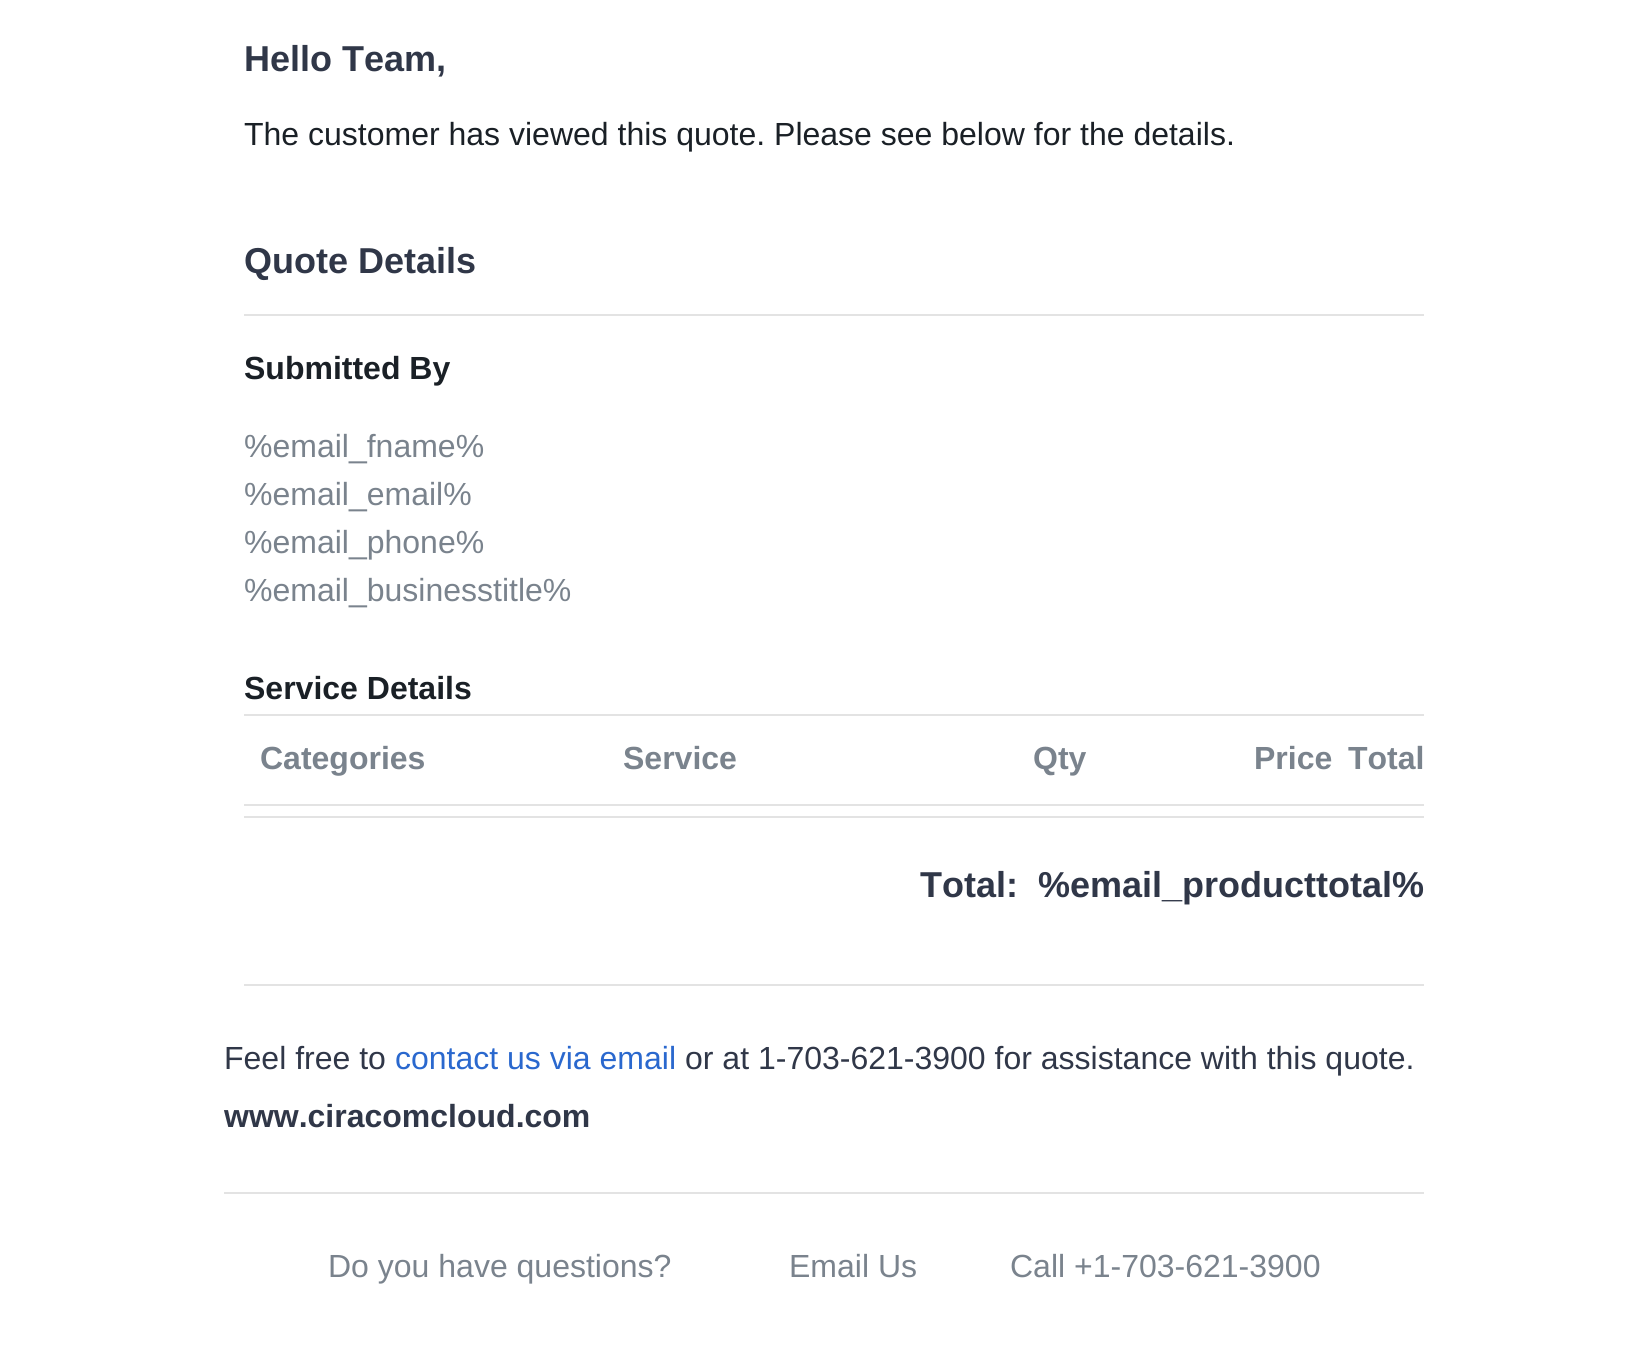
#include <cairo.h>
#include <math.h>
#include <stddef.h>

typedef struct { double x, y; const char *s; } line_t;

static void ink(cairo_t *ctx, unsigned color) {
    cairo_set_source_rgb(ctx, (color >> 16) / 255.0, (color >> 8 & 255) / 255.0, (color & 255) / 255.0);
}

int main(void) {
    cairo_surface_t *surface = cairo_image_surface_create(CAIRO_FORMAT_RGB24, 1647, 1347);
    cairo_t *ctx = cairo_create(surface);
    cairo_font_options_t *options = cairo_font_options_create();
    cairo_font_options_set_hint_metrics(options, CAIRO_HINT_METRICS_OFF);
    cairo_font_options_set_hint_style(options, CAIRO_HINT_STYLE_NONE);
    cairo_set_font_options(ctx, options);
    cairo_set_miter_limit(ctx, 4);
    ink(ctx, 0xFFFFFF);
    cairo_paint(ctx);
    cairo_select_font_face(ctx, "Liberation Sans", CAIRO_FONT_SLANT_NORMAL, CAIRO_FONT_WEIGHT_BOLD);
    cairo_set_font_size(ctx, 36);
    ink(ctx, 0x303748);
    cairo_move_to(ctx, 244, 71);
    cairo_show_text(ctx, "Hello Team,");
    cairo_select_font_face(ctx, "Liberation Sans", CAIRO_FONT_SLANT_NORMAL, CAIRO_FONT_WEIGHT_NORMAL);
    cairo_set_font_size(ctx, 32);
    ink(ctx, 0x1A2026);
    cairo_move_to(ctx, 244, 145);
    cairo_show_text(ctx, "The customer has viewed this quote. Please see below for the details.");
    cairo_select_font_face(ctx, "Liberation Sans", CAIRO_FONT_SLANT_NORMAL, CAIRO_FONT_WEIGHT_BOLD);
    cairo_set_font_size(ctx, 36);
    ink(ctx, 0x303748);
    cairo_move_to(ctx, 244, 273);
    cairo_show_text(ctx, "Quote Details");
    ink(ctx, 0xE3E3E3);
    cairo_rectangle(ctx, 244, 314, 1180, 2);
    cairo_fill(ctx);
    cairo_set_font_size(ctx, 32);
    ink(ctx, 0x1A2026);
    cairo_move_to(ctx, 244, 379);
    cairo_show_text(ctx, "Submitted By");
    cairo_select_font_face(ctx, "Liberation Sans", CAIRO_FONT_SLANT_NORMAL, CAIRO_FONT_WEIGHT_NORMAL);
    ink(ctx, 0x7A838D);
    {
        static const line_t items[] = {
            {244, 457, "%email_fname%"},
            {244, 505, "%email_email%"},
            {244, 553, "%email_phone%"},
            {244, 601, "%email_businesstitle%"},
        };
        for (size_t i = 0; i < sizeof items / sizeof *items; i++) {
            cairo_move_to(ctx, items[i].x, items[i].y);
            cairo_show_text(ctx, items[i].s);
        }
    }
    cairo_select_font_face(ctx, "Liberation Sans", CAIRO_FONT_SLANT_NORMAL, CAIRO_FONT_WEIGHT_BOLD);
    ink(ctx, 0x1A2026);
    cairo_move_to(ctx, 244, 699);
    cairo_show_text(ctx, "Service Details");
    ink(ctx, 0xE3E3E3);
    cairo_rectangle(ctx, 244, 714, 1180, 2);
    cairo_fill(ctx);
    cairo_rectangle(ctx, 244, 804, 1180, 2);
    cairo_fill(ctx);
    ink(ctx, 0x7A838D);
    {
        static const line_t items[] = {
            {260, 769, "Categories"},
            {623, 769, "Service"},
            {1033, 769, "Qty"},
            {1254, 769, "Price"},
            {1348, 769, "Total"},
        };
        for (size_t i = 0; i < sizeof items / sizeof *items; i++) {
            cairo_move_to(ctx, items[i].x, items[i].y);
            cairo_show_text(ctx, items[i].s);
        }
    }
    ink(ctx, 0xE3E3E3);
    cairo_rectangle(ctx, 244, 816, 1180, 2);
    cairo_fill(ctx);
    cairo_set_font_size(ctx, 36);
    ink(ctx, 0x303748);
    cairo_move_to(ctx, 920, 897);
    cairo_show_text(ctx, "Total:");
    cairo_move_to(ctx, 1038, 897);
    cairo_show_text(ctx, "%email_producttotal%");
    ink(ctx, 0xE3E3E3);
    cairo_rectangle(ctx, 244, 984, 1180, 2);
    cairo_fill(ctx);
    cairo_select_font_face(ctx, "Liberation Sans", CAIRO_FONT_SLANT_NORMAL, CAIRO_FONT_WEIGHT_NORMAL);
    cairo_set_font_size(ctx, 32);
    ink(ctx, 0x303748);
    cairo_move_to(ctx, 224, 1069);
    cairo_show_text(ctx, "Feel free to");
    ink(ctx, 0x2A68CE);
    cairo_move_to(ctx, 395, 1069);
    cairo_show_text(ctx, "contact us via email");
    ink(ctx, 0x303748);
    cairo_move_to(ctx, 685, 1069);
    cairo_show_text(ctx, "or at 1-703-621-3900 for assistance with this quote.");
    cairo_select_font_face(ctx, "Liberation Sans", CAIRO_FONT_SLANT_NORMAL, CAIRO_FONT_WEIGHT_BOLD);
    cairo_move_to(ctx, 224, 1127);
    cairo_show_text(ctx, "www.ciracomcloud.com");
    ink(ctx, 0xE3E3E3);
    cairo_rectangle(ctx, 224, 1192, 1200, 2);
    cairo_fill(ctx);
    cairo_select_font_face(ctx, "Liberation Sans", CAIRO_FONT_SLANT_NORMAL, CAIRO_FONT_WEIGHT_NORMAL);
    ink(ctx, 0x7A838D);
    {
        static const line_t items[] = {
            {328, 1277, "Do you have questions?"},
            {789, 1277, "Email Us"},
            {1010, 1277, "Call +1-703-621-3900"},
        };
        for (size_t i = 0; i < sizeof items / sizeof *items; i++) {
            cairo_move_to(ctx, items[i].x, items[i].y);
            cairo_show_text(ctx, items[i].s);
        }
    }
    cairo_surface_write_to_png(surface, "image.png");
    cairo_font_options_destroy(options);
    cairo_destroy(ctx);
    cairo_surface_destroy(surface);
    return 0;
}
